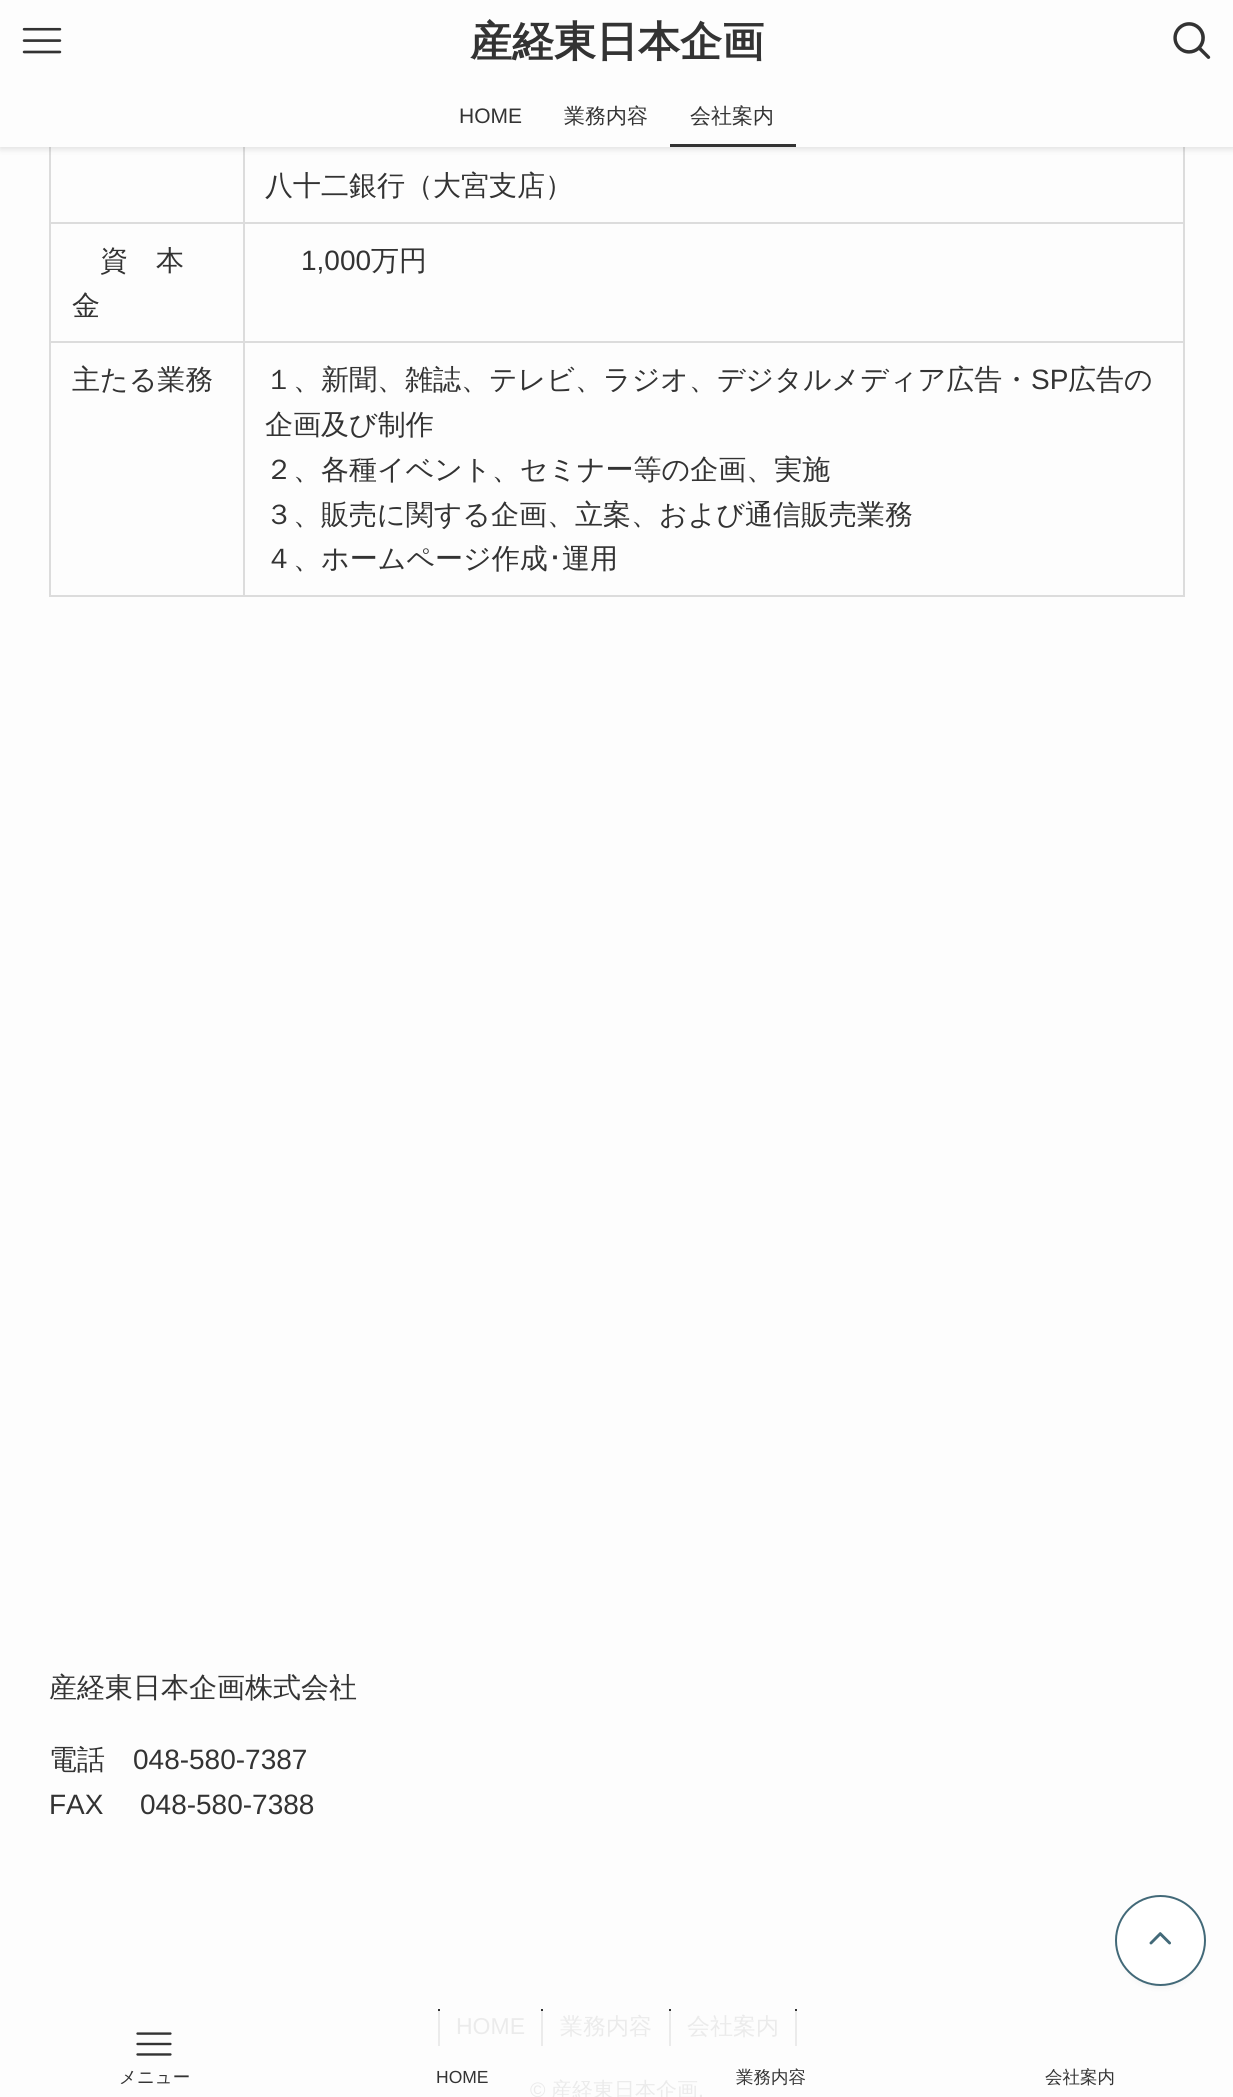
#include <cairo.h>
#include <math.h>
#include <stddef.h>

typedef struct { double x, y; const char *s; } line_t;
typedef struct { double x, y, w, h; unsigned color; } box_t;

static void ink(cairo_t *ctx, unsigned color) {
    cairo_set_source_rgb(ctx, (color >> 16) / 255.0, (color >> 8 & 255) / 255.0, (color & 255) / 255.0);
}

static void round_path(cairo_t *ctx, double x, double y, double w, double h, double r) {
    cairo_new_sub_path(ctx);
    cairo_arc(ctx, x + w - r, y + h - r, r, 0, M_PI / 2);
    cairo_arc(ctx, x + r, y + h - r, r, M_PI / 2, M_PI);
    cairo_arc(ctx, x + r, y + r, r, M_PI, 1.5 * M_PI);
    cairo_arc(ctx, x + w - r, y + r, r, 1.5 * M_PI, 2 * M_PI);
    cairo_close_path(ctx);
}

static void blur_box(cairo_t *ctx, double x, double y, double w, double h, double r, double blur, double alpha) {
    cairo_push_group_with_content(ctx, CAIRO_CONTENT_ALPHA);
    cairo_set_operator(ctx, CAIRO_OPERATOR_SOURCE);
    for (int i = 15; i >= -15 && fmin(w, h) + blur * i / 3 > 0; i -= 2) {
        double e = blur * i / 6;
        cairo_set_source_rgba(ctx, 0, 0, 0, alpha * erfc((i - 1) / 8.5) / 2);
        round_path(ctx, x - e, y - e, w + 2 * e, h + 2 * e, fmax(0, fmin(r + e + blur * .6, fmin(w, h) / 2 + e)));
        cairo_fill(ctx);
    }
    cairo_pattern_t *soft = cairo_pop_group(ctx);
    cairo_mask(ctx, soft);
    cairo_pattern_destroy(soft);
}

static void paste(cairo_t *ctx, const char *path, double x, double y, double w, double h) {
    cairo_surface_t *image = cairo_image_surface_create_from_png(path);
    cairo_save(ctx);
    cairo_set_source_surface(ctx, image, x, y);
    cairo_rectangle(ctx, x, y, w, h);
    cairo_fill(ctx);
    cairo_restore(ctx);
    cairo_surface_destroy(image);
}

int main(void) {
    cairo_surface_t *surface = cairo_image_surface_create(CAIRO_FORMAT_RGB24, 1233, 2097);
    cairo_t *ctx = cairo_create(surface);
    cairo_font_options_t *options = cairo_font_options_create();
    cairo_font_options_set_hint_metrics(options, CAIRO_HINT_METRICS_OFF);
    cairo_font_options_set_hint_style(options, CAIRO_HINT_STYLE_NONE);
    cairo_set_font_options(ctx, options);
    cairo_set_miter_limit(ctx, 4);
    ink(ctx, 0xFDFDFD);
    cairo_paint(ctx);
    {
        static const box_t items[] = {
            {243, 222, 942, 2, 0xDCDCDC},
            {243, 341, 942, 2, 0xDCDCDC},
            {1183, 341, 2, 256, 0xDCDCDC},
            {243, 595, 942, 2, 0xDCDCDC},
            {243, 341, 2, 256, 0xDCDCDC},
            {49, 341, 196, 2, 0xDCDCDC},
            {243, 222, 2, 121, 0xDCDCDC},
            {49, 222, 196, 2, 0xDCDCDC},
            {243, 147, 2, 77, 0xDCDCDC},
            {49, 595, 196, 2, 0xDCDCDC},
            {49, 341, 2, 256, 0xDCDCDC},
            {49, 147, 2, 196, 0xDCDCDC},
            {1183, 147, 2, 196, 0xDCDCDC},
        };
        for (size_t i = 0; i < sizeof items / sizeof *items; i++) {
            ink(ctx, items[i].color);
            cairo_rectangle(ctx, items[i].x, items[i].y, items[i].w, items[i].h);
            cairo_fill(ctx);
        }
    }
    ink(ctx, 0x000000);
    blur_box(ctx, 0, 2, 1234, 147, 0, 3.5, 0.12);
    ink(ctx, 0xFDFDFD);
    cairo_rectangle(ctx, 0, 0, 1233, 147);
    cairo_fill(ctx);
    paste(ctx, "media/1.png", 22, 27, 40, 27);
    cairo_select_font_face(ctx, "WenQuanYi Zen Hei", CAIRO_FONT_SLANT_NORMAL, CAIRO_FONT_WEIGHT_BOLD);
    cairo_set_font_size(ctx, 42);
    ink(ctx, 0x333333);
    cairo_move_to(ctx, 470, 56);
    cairo_show_text(ctx, "産経東日本企画");
    paste(ctx, "media/2.png", 1173, 22, 38, 37);
    cairo_select_font_face(ctx, "Liberation Sans", CAIRO_FONT_SLANT_NORMAL, CAIRO_FONT_WEIGHT_NORMAL);
    cairo_set_font_size(ctx, 21);
    cairo_move_to(ctx, 459, 123);
    cairo_show_text(ctx, "HOME");
    cairo_select_font_face(ctx, "WenQuanYi Zen Hei Medium", CAIRO_FONT_SLANT_NORMAL, CAIRO_FONT_WEIGHT_NORMAL);
    cairo_move_to(ctx, 564, 123);
    cairo_show_text(ctx, "業務内容");
    cairo_rectangle(ctx, 670, 144, 126, 3);
    cairo_fill(ctx);
    cairo_move_to(ctx, 690, 123);
    cairo_show_text(ctx, "会社案内");
    cairo_set_font_size(ctx, 28);
    {
        static const line_t items[] = {
            {265, 195, "八十二銀行（大宮支店）"},
            {100, 270, "資　本"},
            {72, 315, "金"},
        };
        for (size_t i = 0; i < sizeof items / sizeof *items; i++) {
            cairo_move_to(ctx, items[i].x, items[i].y);
            cairo_show_text(ctx, items[i].s);
        }
    }
    cairo_select_font_face(ctx, "Liberation Sans", CAIRO_FONT_SLANT_NORMAL, CAIRO_FONT_WEIGHT_NORMAL);
    cairo_move_to(ctx, 301, 270);
    cairo_show_text(ctx, "1,000");
    cairo_select_font_face(ctx, "WenQuanYi Zen Hei Medium", CAIRO_FONT_SLANT_NORMAL, CAIRO_FONT_WEIGHT_NORMAL);
    {
        static const line_t items[] = {
            {371, 270, "万円"},
            {72, 389, "主たる業務"},
            {265, 389, "１、新聞、雑誌、テレビ、ラジオ、デジタルメディア広告・"},
        };
        for (size_t i = 0; i < sizeof items / sizeof *items; i++) {
            cairo_move_to(ctx, items[i].x, items[i].y);
            cairo_show_text(ctx, items[i].s);
        }
    }
    cairo_select_font_face(ctx, "Liberation Sans", CAIRO_FONT_SLANT_NORMAL, CAIRO_FONT_WEIGHT_NORMAL);
    cairo_move_to(ctx, 1031, 389);
    cairo_show_text(ctx, "SP");
    cairo_select_font_face(ctx, "WenQuanYi Zen Hei Medium", CAIRO_FONT_SLANT_NORMAL, CAIRO_FONT_WEIGHT_NORMAL);
    {
        static const line_t items[] = {
            {1068, 389, "広告の"},
            {265, 434, "企画及び制作"},
            {265, 479, "２、各種イベント、セミナー等の企画、実施"},
            {265, 524, "３、販売に関する企画、立案、および通信販売業務"},
            {265, 568, "４、ホームページ作成"},
        };
        for (size_t i = 0; i < sizeof items / sizeof *items; i++) {
            cairo_move_to(ctx, items[i].x, items[i].y);
            cairo_show_text(ctx, items[i].s);
        }
    }
    cairo_select_font_face(ctx, "IPAPGothic", CAIRO_FONT_SLANT_NORMAL, CAIRO_FONT_WEIGHT_NORMAL);
    cairo_move_to(ctx, 548, 568);
    cairo_show_text(ctx, "･");
    cairo_select_font_face(ctx, "WenQuanYi Zen Hei Medium", CAIRO_FONT_SLANT_NORMAL, CAIRO_FONT_WEIGHT_NORMAL);
    {
        static const line_t items[] = {
            {562, 568, "運用"},
            {49, 1697, "産経東日本企画株式会社"},
            {49, 1769, "電話"},
        };
        for (size_t i = 0; i < sizeof items / sizeof *items; i++) {
            cairo_move_to(ctx, items[i].x, items[i].y);
            cairo_show_text(ctx, items[i].s);
        }
    }
    cairo_select_font_face(ctx, "Liberation Sans", CAIRO_FONT_SLANT_NORMAL, CAIRO_FONT_WEIGHT_NORMAL);
    {
        static const line_t items[] = {
            {133, 1769, "048-580-7387"},
            {49, 1814, "FAX"},
            {140, 1814, "048-580-7388"},
        };
        for (size_t i = 0; i < sizeof items / sizeof *items; i++) {
            cairo_move_to(ctx, items[i].x, items[i].y);
            cairo_show_text(ctx, items[i].s);
        }
    }
    {
        static const box_t items[] = {
            {541, 2009, 2, 2, 0x333333},
            {541, 2011, 2, 35, 0xEBEBEB},
            {438, 2009, 2, 2, 0x333333},
            {438, 2011, 2, 35, 0xEBEBEB},
        };
        for (size_t i = 0; i < sizeof items / sizeof *items; i++) {
            ink(ctx, items[i].color);
            cairo_rectangle(ctx, items[i].x, items[i].y, items[i].w, items[i].h);
            cairo_fill(ctx);
        }
    }
    cairo_set_font_size(ctx, 23);
    cairo_move_to(ctx, 456, 2034);
    cairo_show_text(ctx, "HOME");
    ink(ctx, 0x333333);
    cairo_rectangle(ctx, 669, 2009, 2, 2);
    cairo_fill(ctx);
    ink(ctx, 0xEBEBEB);
    cairo_rectangle(ctx, 669, 2011, 2, 35);
    cairo_fill(ctx);
    cairo_select_font_face(ctx, "WenQuanYi Zen Hei Medium", CAIRO_FONT_SLANT_NORMAL, CAIRO_FONT_WEIGHT_NORMAL);
    cairo_move_to(ctx, 560, 2034);
    cairo_show_text(ctx, "業務内容");
    ink(ctx, 0x333333);
    cairo_rectangle(ctx, 795, 2009, 2, 2);
    cairo_fill(ctx);
    ink(ctx, 0xEBEBEB);
    cairo_rectangle(ctx, 795, 2011, 2, 35);
    cairo_fill(ctx);
    cairo_move_to(ctx, 687, 2034);
    cairo_show_text(ctx, "会社案内");
    cairo_select_font_face(ctx, "Liberation Sans", CAIRO_FONT_SLANT_NORMAL, CAIRO_FONT_WEIGHT_NORMAL);
    cairo_set_font_size(ctx, 21);
    cairo_move_to(ctx, 530, 2097);
    cairo_show_text(ctx, "©");
    cairo_select_font_face(ctx, "WenQuanYi Zen Hei Medium", CAIRO_FONT_SLANT_NORMAL, CAIRO_FONT_WEIGHT_NORMAL);
    cairo_move_to(ctx, 551, 2097);
    cairo_show_text(ctx, "産経東日本企画");
    cairo_select_font_face(ctx, "Liberation Sans", CAIRO_FONT_SLANT_NORMAL, CAIRO_FONT_WEIGHT_NORMAL);
    cairo_move_to(ctx, 698, 2097);
    cairo_show_text(ctx, ".");
    ink(ctx, 0x3F3F3F);
    blur_box(ctx, 1122, 1909, 77, 77, 38.5, 3.5, 0.1);
    ink(ctx, 0xFFFFFF);
    cairo_arc(ctx, 1160.5, 1940.5, 44.5, 0, 2 * M_PI);
    cairo_fill_preserve(ctx);
    ink(ctx, 0x426978);
    cairo_stroke(ctx);
    paste(ctx, "media/3.png", 1149, 1932, 22, 13);
    paste(ctx, "media/4.png", 136, 2032, 36, 24);
    cairo_select_font_face(ctx, "WenQuanYi Zen Hei Medium", CAIRO_FONT_SLANT_NORMAL, CAIRO_FONT_WEIGHT_NORMAL);
    cairo_set_font_size(ctx, 17.5);
    ink(ctx, 0x333333);
    cairo_move_to(ctx, 119, 2083);
    cairo_show_text(ctx, "メニュー");
    cairo_select_font_face(ctx, "Liberation Sans", CAIRO_FONT_SLANT_NORMAL, CAIRO_FONT_WEIGHT_NORMAL);
    cairo_move_to(ctx, 436, 2083);
    cairo_show_text(ctx, "HOME");
    cairo_select_font_face(ctx, "WenQuanYi Zen Hei Medium", CAIRO_FONT_SLANT_NORMAL, CAIRO_FONT_WEIGHT_NORMAL);
    cairo_move_to(ctx, 736, 2083);
    cairo_show_text(ctx, "業務内容");
    cairo_move_to(ctx, 1045, 2083);
    cairo_show_text(ctx, "会社案内");
    cairo_surface_write_to_png(surface, "image.png");
    cairo_font_options_destroy(options);
    cairo_destroy(ctx);
    cairo_surface_destroy(surface);
    return 0;
}
